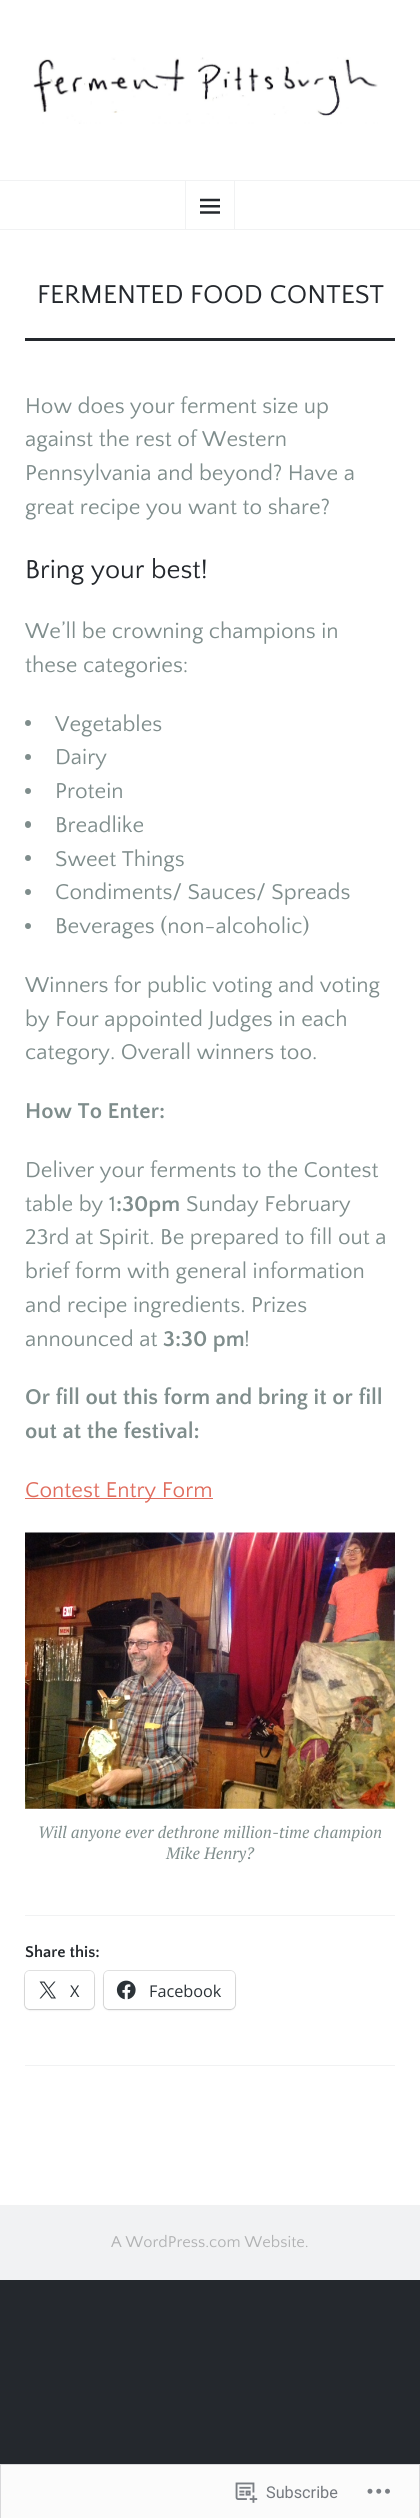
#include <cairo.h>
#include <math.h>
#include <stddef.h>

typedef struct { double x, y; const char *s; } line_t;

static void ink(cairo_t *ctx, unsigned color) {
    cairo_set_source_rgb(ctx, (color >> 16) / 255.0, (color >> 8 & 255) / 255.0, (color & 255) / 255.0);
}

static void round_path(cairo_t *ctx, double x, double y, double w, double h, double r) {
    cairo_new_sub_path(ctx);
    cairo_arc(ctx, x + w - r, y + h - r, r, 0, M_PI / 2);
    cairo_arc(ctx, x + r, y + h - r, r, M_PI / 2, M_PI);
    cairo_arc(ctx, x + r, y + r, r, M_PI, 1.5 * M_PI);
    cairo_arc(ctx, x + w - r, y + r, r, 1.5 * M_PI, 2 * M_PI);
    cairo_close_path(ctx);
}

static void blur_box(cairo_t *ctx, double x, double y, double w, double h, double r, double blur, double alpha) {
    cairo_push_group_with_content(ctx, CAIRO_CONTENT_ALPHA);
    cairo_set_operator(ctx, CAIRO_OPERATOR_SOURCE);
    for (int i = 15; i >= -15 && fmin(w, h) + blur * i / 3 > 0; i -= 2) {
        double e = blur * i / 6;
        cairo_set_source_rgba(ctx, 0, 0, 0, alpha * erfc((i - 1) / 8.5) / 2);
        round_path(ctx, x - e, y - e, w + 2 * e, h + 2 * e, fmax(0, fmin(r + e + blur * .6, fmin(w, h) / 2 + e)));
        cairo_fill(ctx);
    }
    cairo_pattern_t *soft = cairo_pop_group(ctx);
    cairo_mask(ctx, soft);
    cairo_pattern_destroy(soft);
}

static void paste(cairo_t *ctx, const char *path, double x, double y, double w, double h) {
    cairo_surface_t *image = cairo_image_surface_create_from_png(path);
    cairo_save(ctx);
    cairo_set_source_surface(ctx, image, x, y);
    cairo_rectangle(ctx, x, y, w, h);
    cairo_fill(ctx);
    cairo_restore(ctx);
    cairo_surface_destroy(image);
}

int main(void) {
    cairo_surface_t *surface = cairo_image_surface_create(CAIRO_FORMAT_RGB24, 420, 2518);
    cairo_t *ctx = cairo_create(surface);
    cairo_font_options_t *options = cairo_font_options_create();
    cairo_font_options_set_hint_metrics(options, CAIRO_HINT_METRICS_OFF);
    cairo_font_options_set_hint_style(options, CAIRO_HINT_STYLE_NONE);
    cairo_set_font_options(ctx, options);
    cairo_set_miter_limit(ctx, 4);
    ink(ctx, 0x24282D);
    cairo_paint(ctx);
    ink(ctx, 0xFFFFFF);
    cairo_rectangle(ctx, 0, 0, 420, 2205);
    cairo_fill(ctx);
    paste(ctx, "media/1.png", 33, 57, 345, 67);
    ink(ctx, 0xF1F2F3);
    cairo_rectangle(ctx, 0, 180, 420, 1);
    cairo_fill(ctx);
    cairo_rectangle(ctx, 0, 229, 420, 1);
    cairo_fill(ctx);
    cairo_rectangle(ctx, 185.5, 180.5, 49, 49);
    cairo_set_line_width(ctx, 1);
    cairo_stroke(ctx);
    paste(ctx, "media/2.png", 200, 198, 20, 16);
    cairo_select_font_face(ctx, "Quattrocento Sans", CAIRO_FONT_SLANT_NORMAL, CAIRO_FONT_WEIGHT_NORMAL);
    cairo_set_font_size(ctx, 27);
    ink(ctx, 0x24282D);
    cairo_move_to(ctx, 37, 303);
    cairo_show_text(ctx, "FERMENTED FOOD CONTEST");
    cairo_rectangle(ctx, 25, 338, 370, 3);
    cairo_fill(ctx);
    cairo_set_font_size(ctx, 22.5);
    ink(ctx, 0x7F8D8C);
    {
        static const line_t items[] = {
            {25, 413, "How does your ferment size up"},
            {25, 446, "against the rest of Western"},
            {25, 480, "Pennsylvania and beyond? Have a"},
            {25, 514, "great recipe you want to share?"},
        };
        for (size_t i = 0; i < sizeof items / sizeof *items; i++) {
            cairo_move_to(ctx, items[i].x, items[i].y);
            cairo_show_text(ctx, items[i].s);
        }
    }
    cairo_set_font_size(ctx, 27);
    ink(ctx, 0x24282D);
    cairo_move_to(ctx, 25, 578);
    cairo_show_text(ctx, "Bring your best!");
    cairo_set_font_size(ctx, 22.5);
    ink(ctx, 0x7F8D8C);
    cairo_move_to(ctx, 25, 638);
    cairo_show_text(ctx, "We’ll be crowning champions in");
    cairo_move_to(ctx, 25, 672);
    cairo_show_text(ctx, "these categories:");
    cairo_new_path(ctx);
    cairo_arc(ctx, 28, 723, 3, 0, 2 * M_PI);
    cairo_fill(ctx);
    cairo_move_to(ctx, 55, 731);
    cairo_show_text(ctx, "Vegetables");
    cairo_new_path(ctx);
    cairo_arc(ctx, 28, 757, 3, 0, 2 * M_PI);
    cairo_fill(ctx);
    cairo_move_to(ctx, 55, 764);
    cairo_show_text(ctx, "Dairy");
    cairo_new_path(ctx);
    cairo_arc(ctx, 28, 791, 3, 0, 2 * M_PI);
    cairo_fill(ctx);
    cairo_move_to(ctx, 55, 798);
    cairo_show_text(ctx, "Protein");
    round_path(ctx, 25, 821, 6, 7, 3);
    cairo_fill(ctx);
    cairo_move_to(ctx, 55, 832);
    cairo_show_text(ctx, "Breadlike");
    cairo_new_path(ctx);
    cairo_arc(ctx, 28, 858, 3, 0, 2 * M_PI);
    cairo_fill(ctx);
    cairo_move_to(ctx, 55, 866);
    cairo_show_text(ctx, "Sweet Things");
    cairo_new_path(ctx);
    cairo_arc(ctx, 28, 892, 3, 0, 2 * M_PI);
    cairo_fill(ctx);
    cairo_move_to(ctx, 55, 899);
    cairo_show_text(ctx, "Condiments/ Sauces/ Spreads");
    cairo_new_path(ctx);
    cairo_arc(ctx, 28, 926, 3, 0, 2 * M_PI);
    cairo_fill(ctx);
    {
        static const line_t items[] = {
            {55, 933, "Beverages (non-alcoholic)"},
            {25, 992, "Winners for public voting and voting"},
            {25, 1026, "by Four appointed Judges in each"},
            {25, 1059, "category. Overall winners too."},
        };
        for (size_t i = 0; i < sizeof items / sizeof *items; i++) {
            cairo_move_to(ctx, items[i].x, items[i].y);
            cairo_show_text(ctx, items[i].s);
        }
    }
    cairo_select_font_face(ctx, "Quattrocento Sans", CAIRO_FONT_SLANT_NORMAL, CAIRO_FONT_WEIGHT_BOLD);
    cairo_move_to(ctx, 25, 1118);
    cairo_show_text(ctx, "How To Enter:");
    cairo_select_font_face(ctx, "Quattrocento Sans", CAIRO_FONT_SLANT_NORMAL, CAIRO_FONT_WEIGHT_NORMAL);
    cairo_move_to(ctx, 25, 1177);
    cairo_show_text(ctx, "Deliver your ferments to the Contest");
    cairo_move_to(ctx, 25, 1211);
    cairo_show_text(ctx, "table by 1");
    cairo_select_font_face(ctx, "Quattrocento Sans", CAIRO_FONT_SLANT_NORMAL, CAIRO_FONT_WEIGHT_BOLD);
    cairo_move_to(ctx, 116, 1211);
    cairo_show_text(ctx, ":30pm");
    cairo_select_font_face(ctx, "Quattrocento Sans", CAIRO_FONT_SLANT_NORMAL, CAIRO_FONT_WEIGHT_NORMAL);
    {
        static const line_t items[] = {
            {186, 1211, "Sunday February"},
            {25, 1244, "23rd at Spirit. Be prepared to fill out a"},
            {25, 1278, "brief form with general information"},
            {25, 1312, "and recipe ingredients. Prizes"},
            {25, 1346, "announced at"},
        };
        for (size_t i = 0; i < sizeof items / sizeof *items; i++) {
            cairo_move_to(ctx, items[i].x, items[i].y);
            cairo_show_text(ctx, items[i].s);
        }
    }
    cairo_select_font_face(ctx, "Quattrocento Sans", CAIRO_FONT_SLANT_NORMAL, CAIRO_FONT_WEIGHT_BOLD);
    cairo_move_to(ctx, 163, 1346);
    cairo_show_text(ctx, "3:30 pm");
    cairo_select_font_face(ctx, "Quattrocento Sans", CAIRO_FONT_SLANT_NORMAL, CAIRO_FONT_WEIGHT_NORMAL);
    cairo_move_to(ctx, 244, 1346);
    cairo_show_text(ctx, "!");
    cairo_select_font_face(ctx, "Quattrocento Sans", CAIRO_FONT_SLANT_NORMAL, CAIRO_FONT_WEIGHT_BOLD);
    cairo_move_to(ctx, 25, 1404);
    cairo_show_text(ctx, "Or fill out this form and bring it or fill");
    cairo_move_to(ctx, 25, 1438);
    cairo_show_text(ctx, "out at the festival:");
    ink(ctx, 0xE06D5E);
    cairo_rectangle(ctx, 25, 1498, 188, 1);
    cairo_fill(ctx);
    cairo_select_font_face(ctx, "Quattrocento Sans", CAIRO_FONT_SLANT_NORMAL, CAIRO_FONT_WEIGHT_NORMAL);
    cairo_move_to(ctx, 25, 1497);
    cairo_show_text(ctx, "Contest Entry Form");
    paste(ctx, "media/3.png", 25, 1532, 370, 277);
    cairo_select_font_face(ctx, "PT Serif", CAIRO_FONT_SLANT_ITALIC, CAIRO_FONT_WEIGHT_NORMAL);
    cairo_set_font_size(ctx, 16.4);
    ink(ctx, 0x7F8D8C);
    cairo_move_to(ctx, 38, 1838);
    cairo_show_text(ctx, "Will anyone ever dethrone million-time champion");
    cairo_move_to(ctx, 166, 1859);
    cairo_show_text(ctx, "Mike Henry?");
    ink(ctx, 0xF1F2F3);
    cairo_rectangle(ctx, 25, 1915, 370, 1);
    cairo_fill(ctx);
    cairo_select_font_face(ctx, "Quattrocento Sans", CAIRO_FONT_SLANT_NORMAL, CAIRO_FONT_WEIGHT_BOLD);
    ink(ctx, 0x24282D);
    cairo_move_to(ctx, 25, 1957);
    cairo_show_text(ctx, "Share this:");
    round_path(ctx, 24.5, 1970.5, 70, 39, 5.5);
    ink(ctx, 0xE0E0E0);
    cairo_stroke(ctx);
    ink(ctx, 0x000000);
    blur_box(ctx, 25, 1973, 69, 37, 5, 1, 0.12);
    ink(ctx, 0xFFFFFF);
    round_path(ctx, 25, 1971, 69, 38, 5);
    cairo_fill(ctx);
    paste(ctx, "media/4.png", 39, 1981, 17, 18);
    cairo_select_font_face(ctx, "Open Sans", CAIRO_FONT_SLANT_NORMAL, CAIRO_FONT_WEIGHT_NORMAL);
    cairo_set_font_size(ctx, 16.25);
    ink(ctx, 0x2C3338);
    cairo_move_to(ctx, 70, 1997);
    cairo_show_text(ctx, "X");
    round_path(ctx, 103.5, 1970.5, 132, 39, 5.5);
    ink(ctx, 0xE0E0E0);
    cairo_stroke(ctx);
    ink(ctx, 0x000000);
    blur_box(ctx, 104, 1973, 131, 37, 5, 1, 0.12);
    ink(ctx, 0xFFFFFF);
    round_path(ctx, 104, 1971, 131, 38, 5);
    cairo_fill(ctx);
    paste(ctx, "media/5.png", 116, 1980, 20, 20);
    ink(ctx, 0x2C3338);
    cairo_move_to(ctx, 149, 1997);
    cairo_show_text(ctx, "Facebook");
    ink(ctx, 0xF1F2F3);
    cairo_rectangle(ctx, 25, 2065, 370, 1);
    cairo_fill(ctx);
    cairo_rectangle(ctx, 0, 2205, 420, 75);
    cairo_fill(ctx);
    cairo_select_font_face(ctx, "Quattrocento Sans", CAIRO_FONT_SLANT_NORMAL, CAIRO_FONT_WEIGHT_NORMAL);
    cairo_set_font_size(ctx, 16.4);
    ink(ctx, 0xB1B2B3);
    cairo_move_to(ctx, 111, 2247);
    cairo_show_text(ctx, "A WordPress.com Website.");
    ink(ctx, 0xFBFBFB);
    cairo_rectangle(ctx, 0.5, 2464.5, 419, 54);
    cairo_fill_preserve(ctx);
    ink(ctx, 0xD8D8DA);
    cairo_stroke(ctx);
    paste(ctx, "media/6.png", 235, 2482, 23, 21);
    cairo_select_font_face(ctx, "Roboto", CAIRO_FONT_SLANT_NORMAL, CAIRO_FONT_WEIGHT_NORMAL);
    cairo_set_font_size(ctx, 16.25);
    ink(ctx, 0x767A80);
    cairo_move_to(ctx, 266, 2498);
    cairo_show_text(ctx, "Subscribe");
    paste(ctx, "media/7.png", 367, 2488, 23, 6);
    cairo_surface_write_to_png(surface, "image.png");
    cairo_font_options_destroy(options);
    cairo_destroy(ctx);
    cairo_surface_destroy(surface);
    return 0;
}
